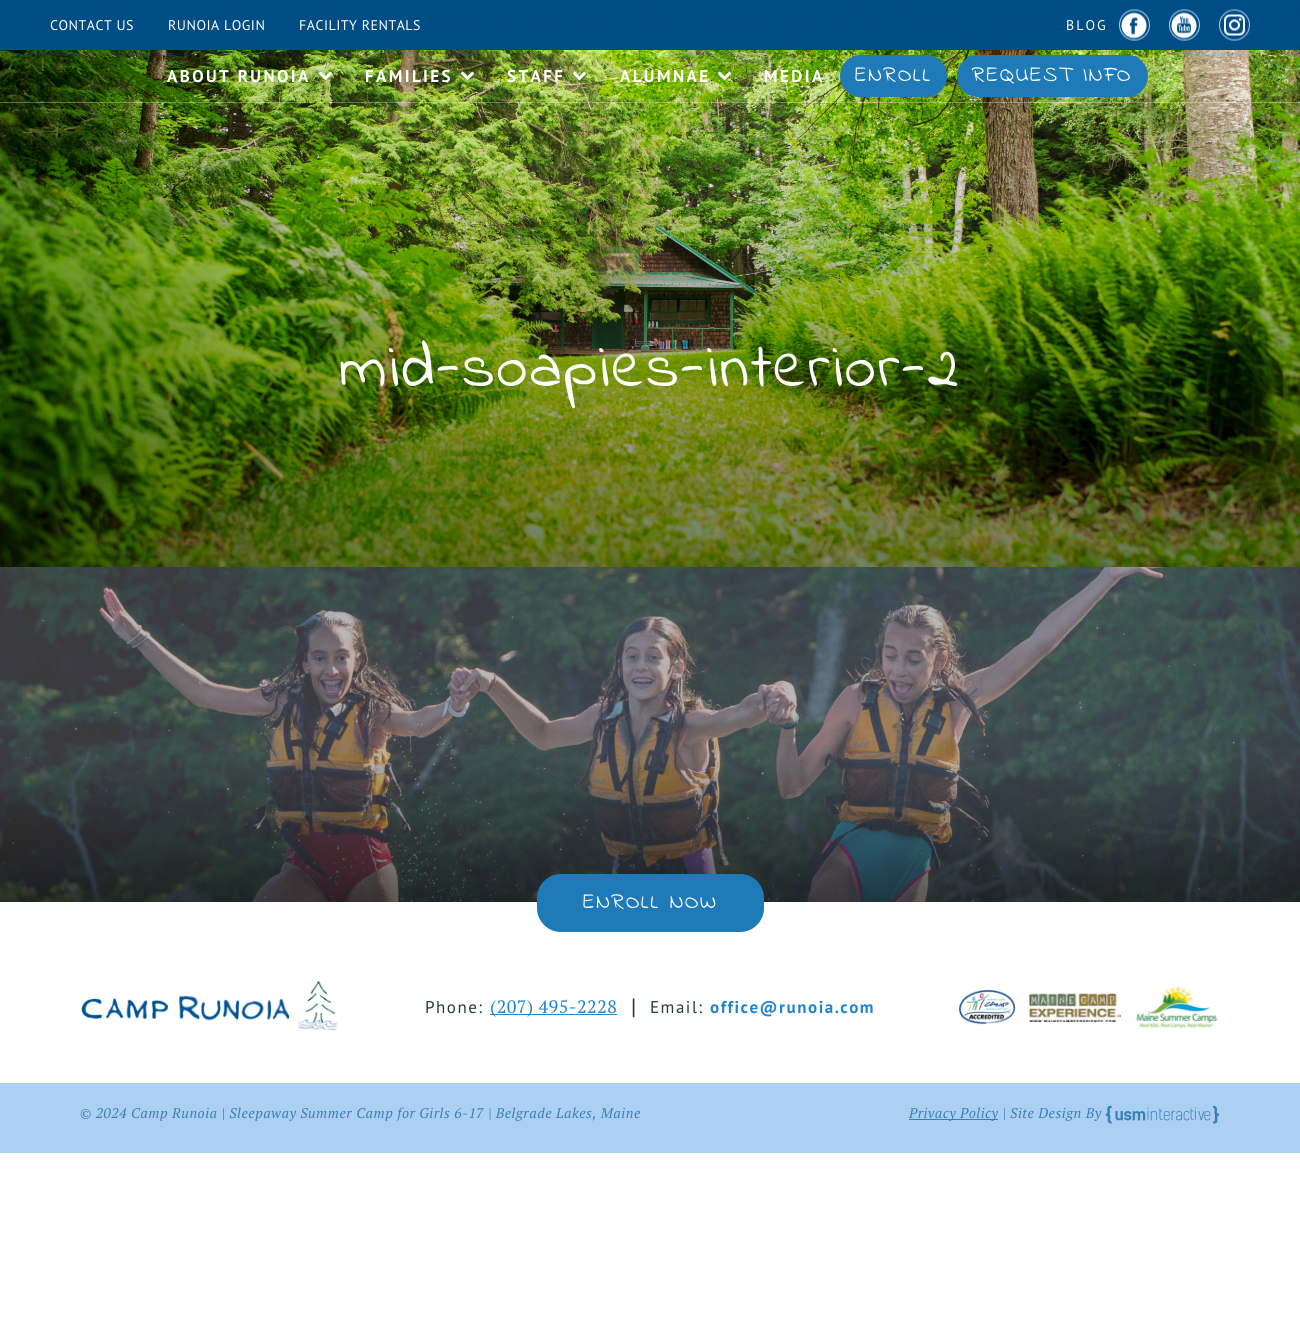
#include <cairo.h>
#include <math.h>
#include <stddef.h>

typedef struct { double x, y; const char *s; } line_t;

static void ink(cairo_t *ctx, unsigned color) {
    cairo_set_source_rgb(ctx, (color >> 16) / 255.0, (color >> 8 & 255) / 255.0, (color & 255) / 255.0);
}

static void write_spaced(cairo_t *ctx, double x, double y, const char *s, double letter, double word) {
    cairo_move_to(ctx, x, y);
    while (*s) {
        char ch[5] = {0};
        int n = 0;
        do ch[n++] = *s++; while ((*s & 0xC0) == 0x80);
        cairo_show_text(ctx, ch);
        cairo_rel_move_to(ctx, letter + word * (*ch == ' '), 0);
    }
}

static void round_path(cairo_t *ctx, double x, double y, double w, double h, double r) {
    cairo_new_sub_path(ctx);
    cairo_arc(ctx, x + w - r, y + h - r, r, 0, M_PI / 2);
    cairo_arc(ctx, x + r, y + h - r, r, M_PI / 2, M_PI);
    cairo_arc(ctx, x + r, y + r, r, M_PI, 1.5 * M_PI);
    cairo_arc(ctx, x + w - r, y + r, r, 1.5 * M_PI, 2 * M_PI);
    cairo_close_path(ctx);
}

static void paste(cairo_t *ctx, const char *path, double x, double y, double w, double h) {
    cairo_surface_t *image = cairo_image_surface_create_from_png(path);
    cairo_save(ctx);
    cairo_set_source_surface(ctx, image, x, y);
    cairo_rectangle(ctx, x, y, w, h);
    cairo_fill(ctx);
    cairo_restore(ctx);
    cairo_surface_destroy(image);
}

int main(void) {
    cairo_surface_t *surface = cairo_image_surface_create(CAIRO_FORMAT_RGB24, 1300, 1318);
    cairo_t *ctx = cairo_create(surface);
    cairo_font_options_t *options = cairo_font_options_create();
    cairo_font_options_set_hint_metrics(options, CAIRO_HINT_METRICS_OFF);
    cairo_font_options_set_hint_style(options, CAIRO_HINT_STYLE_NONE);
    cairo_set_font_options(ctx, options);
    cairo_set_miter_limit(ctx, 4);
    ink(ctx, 0xFFFFFF);
    cairo_paint(ctx);
    paste(ctx, "media/1.png", 0, 0, 1300, 50);
    cairo_select_font_face(ctx, "PT Sans", CAIRO_FONT_SLANT_NORMAL, CAIRO_FONT_WEIGHT_NORMAL);
    cairo_set_font_size(ctx, 14);
    ink(ctx, 0xFFFFFF);
    {
        static const line_t items[] = {
            {50, 30, "CONTACT US"},
            {168, 30, "RUNOIA LOGIN"},
            {299, 30, "FACILITY RENTALS"},
        };
        for (size_t i = 0; i < sizeof items / sizeof *items; i++) {
            write_spaced(ctx, items[i].x, items[i].y, items[i].s, 0.5, 0);
        }
    }
    write_spaced(ctx, 1066, 30, "BLOG", 2, 0);
    paste(ctx, "media/2.png", 1119, 9, 31, 32);
    paste(ctx, "media/3.png", 1169, 9, 31, 32);
    paste(ctx, "media/4.png", 1219, 9, 31, 32);
    paste(ctx, "media/9.png", 0, 50, 1300, 517);
    cairo_set_source_rgba(ctx, 1, 1, 1, 0.3);
    cairo_rectangle(ctx, 0, 102, 1300, 1);
    cairo_fill(ctx);
    cairo_select_font_face(ctx, "PT Sans", CAIRO_FONT_SLANT_NORMAL, CAIRO_FONT_WEIGHT_BOLD);
    cairo_set_font_size(ctx, 17);
    ink(ctx, 0xFFFFFF);
    write_spaced(ctx, 167, 82, "ABOUT RUNOIA", 2.4, 0);
    paste(ctx, "media/5.png", 318, 71, 15, 10);
    write_spaced(ctx, 365, 82, "FAMILIES", 2.4, 0);
    paste(ctx, "media/6.png", 460, 71, 15, 10);
    write_spaced(ctx, 507, 82, "STAFF", 2.4, 0);
    paste(ctx, "media/7.png", 572, 71, 15, 10);
    write_spaced(ctx, 620, 82, "ALUMNAE", 2.4, 0);
    paste(ctx, "media/8.png", 717, 71, 15, 10);
    write_spaced(ctx, 764, 82, "MEDIA", 2.4, 0);
    ink(ctx, 0x1F7BB8);
    round_path(ctx, 840, 55, 107, 42, 21);
    cairo_fill(ctx);
    cairo_select_font_face(ctx, "Indie Flower", CAIRO_FONT_SLANT_NORMAL, CAIRO_FONT_WEIGHT_NORMAL);
    cairo_set_font_size(ctx, 22);
    ink(ctx, 0xFFFFFF);
    write_spaced(ctx, 855, 81, "ENROLL", 1.75, 0);
    ink(ctx, 0x1F7BB8);
    round_path(ctx, 957, 55, 191, 42, 21);
    cairo_fill(ctx);
    ink(ctx, 0xFFFFFF);
    write_spaced(ctx, 972, 81, "REQUEST INFO", 1.75, 0);
    cairo_set_font_size(ctx, 63);
    write_spaced(ctx, 339, 386, "mid-soapies-interior-2", 2.1, 0);
    paste(ctx, "media/10.png", 0, 567, 1300, 335);
    ink(ctx, 0x1F7BB8);
    round_path(ctx, 537, 874, 227, 58, 24);
    cairo_fill(ctx);
    cairo_set_font_size(ctx, 22);
    ink(ctx, 0xFFFFFF);
    write_spaced(ctx, 583, 908, "ENROLL NOW", 1.75, 0);
    paste(ctx, "media/11.png", 81, 981, 257, 50);
    cairo_select_font_face(ctx, "PT Sans", CAIRO_FONT_SLANT_NORMAL, CAIRO_FONT_WEIGHT_NORMAL);
    cairo_set_font_size(ctx, 17);
    ink(ctx, 0x283A42);
    write_spaced(ctx, 425, 1013, "Phone:", 1.5, 0);
    ink(ctx, 0x2184CD);
    cairo_rectangle(ctx, 490, 1014, 127, 1);
    cairo_fill(ctx);
    cairo_select_font_face(ctx, "PT Serif", CAIRO_FONT_SLANT_NORMAL, CAIRO_FONT_WEIGHT_NORMAL);
    cairo_set_font_size(ctx, 18);
    write_spaced(ctx, 490, 1013, "(207) 495-2228", 0.5, 0);
    cairo_select_font_face(ctx, "Liberation Sans", CAIRO_FONT_SLANT_NORMAL, CAIRO_FONT_WEIGHT_NORMAL);
    cairo_set_font_size(ctx, 20);
    ink(ctx, 0x333333);
    cairo_move_to(ctx, 631, 1013);
    cairo_show_text(ctx, "|");
    cairo_select_font_face(ctx, "PT Sans", CAIRO_FONT_SLANT_NORMAL, CAIRO_FONT_WEIGHT_NORMAL);
    cairo_set_font_size(ctx, 17);
    ink(ctx, 0x283A42);
    write_spaced(ctx, 650, 1013, "Email:", 1.5, 0);
    cairo_select_font_face(ctx, "PT Sans", CAIRO_FONT_SLANT_NORMAL, CAIRO_FONT_WEIGHT_BOLD);
    ink(ctx, 0x2184CD);
    write_spaced(ctx, 710, 1013, "office@runoia.com", 1.5, 0);
    paste(ctx, "media/12.png", 958, 990, 58, 35);
    paste(ctx, "media/13.png", 1029, 993, 92, 29);
    paste(ctx, "media/14.png", 1135, 985, 83, 44);
    ink(ctx, 0xACD0F4);
    cairo_rectangle(ctx, 0, 1083, 1300, 70);
    cairo_fill(ctx);
    cairo_select_font_face(ctx, "PT Serif", CAIRO_FONT_SLANT_ITALIC, CAIRO_FONT_WEIGHT_NORMAL);
    cairo_set_font_size(ctx, 14);
    ink(ctx, 0x3B7FB6);
    write_spaced(ctx, 80, 1118, "© 2024 Camp Runoia | Sleepaway Summer Camp for Girls 6-17 | Belgrade Lakes, Maine", 0.5, 0);
    cairo_rectangle(ctx, 909, 1119, 89, 1);
    cairo_fill(ctx);
    write_spaced(ctx, 909, 1118, "Privacy Policy | Site Design By", 0.5, 0);
    paste(ctx, "media/15.png", 1105, 1105, 114, 19);
    cairo_surface_write_to_png(surface, "image.png");
    cairo_font_options_destroy(options);
    cairo_destroy(ctx);
    cairo_surface_destroy(surface);
    return 0;
}
